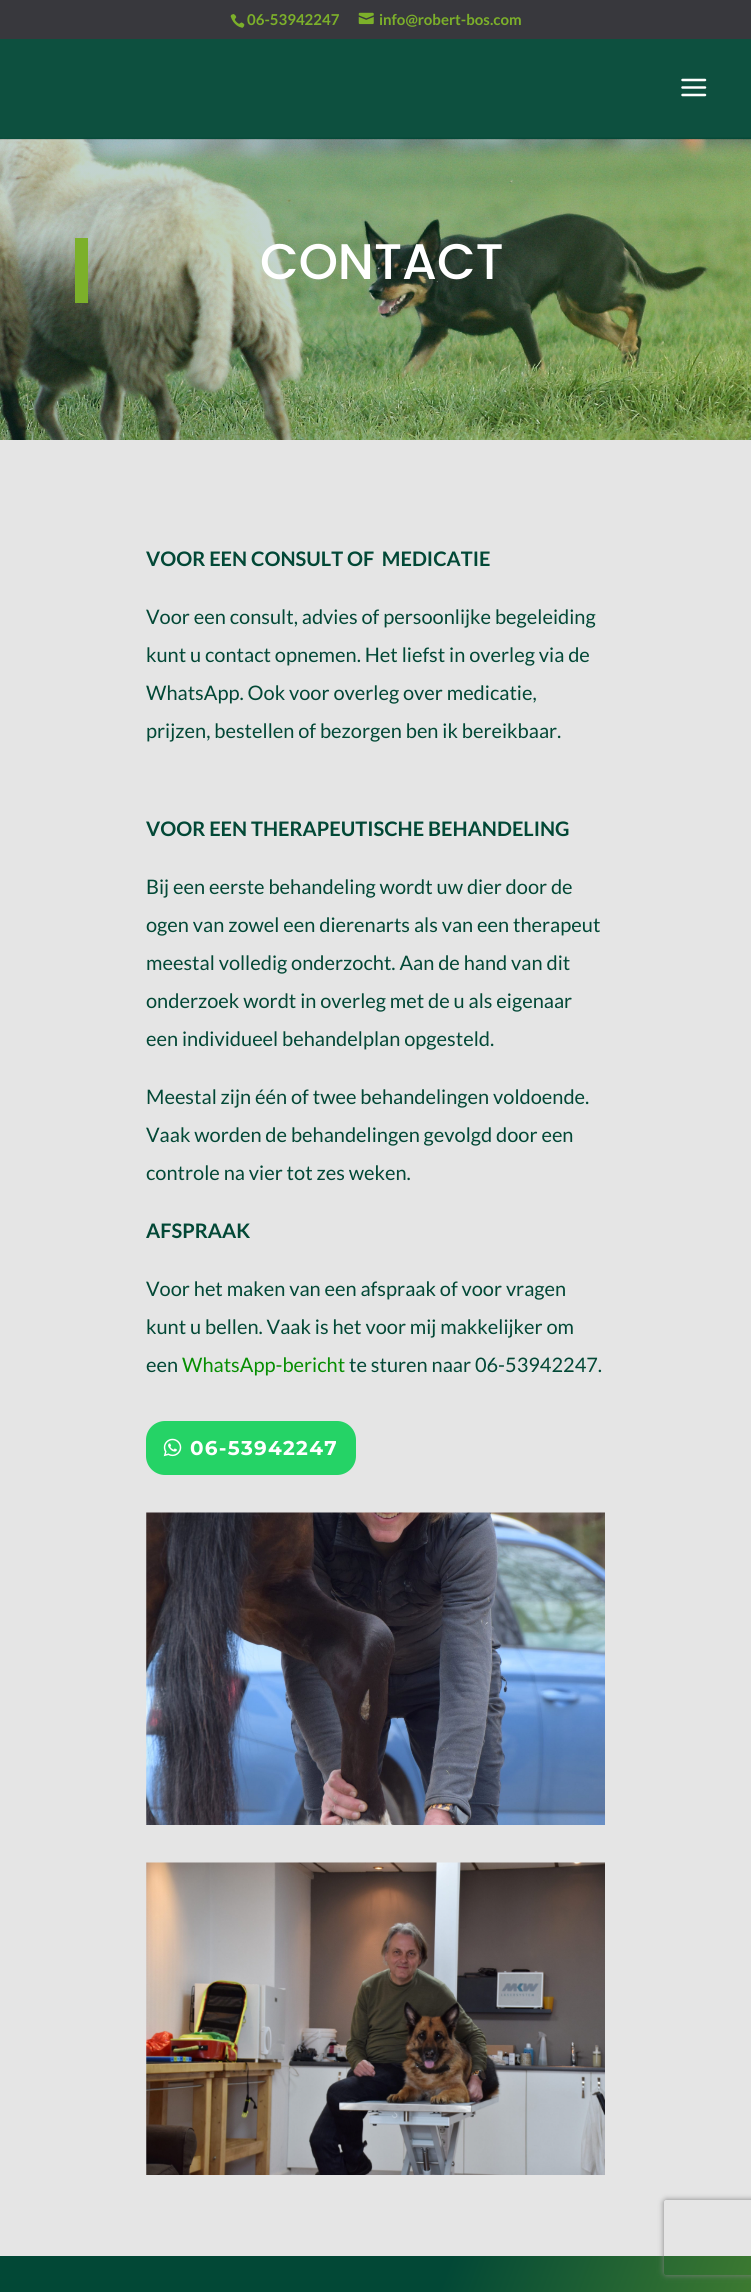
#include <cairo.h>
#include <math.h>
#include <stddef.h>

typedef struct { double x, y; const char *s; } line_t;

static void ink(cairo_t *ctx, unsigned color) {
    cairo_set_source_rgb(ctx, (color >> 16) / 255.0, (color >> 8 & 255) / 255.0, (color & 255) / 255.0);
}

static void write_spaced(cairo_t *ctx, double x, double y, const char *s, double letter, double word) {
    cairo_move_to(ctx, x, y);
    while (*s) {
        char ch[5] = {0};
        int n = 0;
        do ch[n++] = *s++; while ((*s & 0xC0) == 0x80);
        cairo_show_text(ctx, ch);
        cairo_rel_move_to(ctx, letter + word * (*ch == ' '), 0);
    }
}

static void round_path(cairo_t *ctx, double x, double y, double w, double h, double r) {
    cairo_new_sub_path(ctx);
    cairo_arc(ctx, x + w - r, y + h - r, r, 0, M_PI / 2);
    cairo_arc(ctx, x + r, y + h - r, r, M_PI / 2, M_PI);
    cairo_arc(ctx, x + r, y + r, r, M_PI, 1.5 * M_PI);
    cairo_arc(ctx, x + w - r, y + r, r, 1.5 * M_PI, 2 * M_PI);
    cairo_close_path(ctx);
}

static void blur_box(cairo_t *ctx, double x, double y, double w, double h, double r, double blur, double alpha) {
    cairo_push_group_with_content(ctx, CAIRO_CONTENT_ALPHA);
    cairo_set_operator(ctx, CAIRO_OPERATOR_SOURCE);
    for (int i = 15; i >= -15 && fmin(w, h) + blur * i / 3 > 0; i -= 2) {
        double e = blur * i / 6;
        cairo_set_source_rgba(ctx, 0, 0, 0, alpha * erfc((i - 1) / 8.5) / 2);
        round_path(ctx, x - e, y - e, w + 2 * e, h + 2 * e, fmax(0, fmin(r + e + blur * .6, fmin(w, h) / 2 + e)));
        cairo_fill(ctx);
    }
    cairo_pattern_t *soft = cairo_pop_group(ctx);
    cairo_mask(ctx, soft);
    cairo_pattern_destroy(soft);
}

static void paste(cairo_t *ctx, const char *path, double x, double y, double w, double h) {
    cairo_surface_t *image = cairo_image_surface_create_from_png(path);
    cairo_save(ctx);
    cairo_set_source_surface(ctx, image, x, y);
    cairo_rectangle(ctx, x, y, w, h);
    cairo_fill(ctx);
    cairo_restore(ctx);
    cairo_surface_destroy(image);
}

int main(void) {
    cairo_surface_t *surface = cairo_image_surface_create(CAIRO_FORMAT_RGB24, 751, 2292);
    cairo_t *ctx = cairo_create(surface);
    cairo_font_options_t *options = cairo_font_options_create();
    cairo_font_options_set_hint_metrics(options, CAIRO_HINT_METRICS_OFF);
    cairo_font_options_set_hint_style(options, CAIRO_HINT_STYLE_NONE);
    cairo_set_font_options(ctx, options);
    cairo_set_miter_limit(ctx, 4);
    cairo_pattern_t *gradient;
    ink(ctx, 0xFFFFFF);
    cairo_paint(ctx);
    ink(ctx, 0x38383D);
    cairo_rectangle(ctx, 0, 0, 751, 39);
    cairo_fill(ctx);
    paste(ctx, "media/1.png", 230, 14, 15, 14);
    cairo_select_font_face(ctx, "Lato", CAIRO_FONT_SLANT_NORMAL, CAIRO_FONT_WEIGHT_BOLD);
    cairo_set_font_size(ctx, 15);
    ink(ctx, 0x7CB02A);
    cairo_move_to(ctx, 247, 25);
    cairo_show_text(ctx, "06-53942247");
    paste(ctx, "media/2.png", 358, 12, 16, 13);
    cairo_move_to(ctx, 379, 25);
    cairo_show_text(ctx, "info@robert-bos.com");
    paste(ctx, "media/4.png", 0, 137, 751, 303);
    cairo_set_source_rgba(ctx, 0, 0, 0, 0.1);
    cairo_rectangle(ctx, 0, 139, 751, 1);
    cairo_fill(ctx);
    cairo_set_source_rgba(ctx, 0.008, 0.282, 0.212, 0.95);
    cairo_rectangle(ctx, 0, 39, 751, 100);
    cairo_fill(ctx);
    paste(ctx, "media/3.png", 681, 78, 26, 19);
    ink(ctx, 0x7CB02A);
    cairo_rectangle(ctx, 75, 238, 13, 65);
    cairo_fill(ctx);
    cairo_select_font_face(ctx, "Poppins Medium", CAIRO_FONT_SLANT_NORMAL, CAIRO_FONT_WEIGHT_NORMAL);
    cairo_set_font_size(ctx, 50);
    ink(ctx, 0xFFFFFF);
    cairo_move_to(ctx, 260, 279);
    cairo_show_text(ctx, "CONTACT");
    ink(ctx, 0xE5E5E5);
    cairo_rectangle(ctx, 0, 440, 751, 1816);
    cairo_fill(ctx);
    cairo_select_font_face(ctx, "Lato", CAIRO_FONT_SLANT_NORMAL, CAIRO_FONT_WEIGHT_BOLD);
    cairo_set_font_size(ctx, 20);
    ink(ctx, 0x024836);
    cairo_move_to(ctx, 146, 566);
    cairo_show_text(ctx, "VOOR EEN CONSULT OF  MEDICATIE");
    cairo_select_font_face(ctx, "Lato", CAIRO_FONT_SLANT_NORMAL, CAIRO_FONT_WEIGHT_NORMAL);
    {
        static const line_t items[] = {
            {146, 624, "Voor een consult, advies of persoonlijke begeleiding"},
            {146, 662, "kunt u contact opnemen. Het liefst in overleg via de"},
            {146, 700, "WhatsApp. Ook voor overleg over medicatie,"},
            {146, 738, "prijzen, bestellen of bezorgen ben ik bereikbaar."},
        };
        for (size_t i = 0; i < sizeof items / sizeof *items; i++) {
            cairo_move_to(ctx, items[i].x, items[i].y);
            cairo_show_text(ctx, items[i].s);
        }
    }
    cairo_select_font_face(ctx, "Lato", CAIRO_FONT_SLANT_NORMAL, CAIRO_FONT_WEIGHT_BOLD);
    cairo_move_to(ctx, 146, 836);
    cairo_show_text(ctx, "VOOR EEN THERAPEUTISCHE BEHANDELING");
    cairo_select_font_face(ctx, "Lato", CAIRO_FONT_SLANT_NORMAL, CAIRO_FONT_WEIGHT_NORMAL);
    {
        static const line_t items[] = {
            {146, 894, "Bij een eerste behandeling wordt uw dier door de"},
            {146, 932, "ogen van zowel een dierenarts als van een therapeut"},
            {146, 970, "meestal volledig onderzocht. Aan de hand van dit"},
            {146, 1008, "onderzoek wordt in overleg met de u als eigenaar"},
            {146, 1046, "een individueel behandelplan opgesteld."},
            {146, 1104, "Meestal zijn één of twee behandelingen voldoende."},
            {146, 1142, "Vaak worden de behandelingen gevolgd door een"},
            {146, 1180, "controle na vier tot zes weken."},
        };
        for (size_t i = 0; i < sizeof items / sizeof *items; i++) {
            cairo_move_to(ctx, items[i].x, items[i].y);
            cairo_show_text(ctx, items[i].s);
        }
    }
    cairo_select_font_face(ctx, "Lato", CAIRO_FONT_SLANT_NORMAL, CAIRO_FONT_WEIGHT_BOLD);
    cairo_move_to(ctx, 146, 1238);
    cairo_show_text(ctx, "AFSPRAAK");
    cairo_select_font_face(ctx, "Lato", CAIRO_FONT_SLANT_NORMAL, CAIRO_FONT_WEIGHT_NORMAL);
    {
        static const line_t items[] = {
            {146, 1296, "Voor het maken van een afspraak of voor vragen"},
            {146, 1334, "kunt u bellen. Vaak is het voor mij makkelijker om"},
            {146, 1372, "een"},
        };
        for (size_t i = 0; i < sizeof items / sizeof *items; i++) {
            cairo_move_to(ctx, items[i].x, items[i].y);
            cairo_show_text(ctx, items[i].s);
        }
    }
    ink(ctx, 0x068E01);
    cairo_move_to(ctx, 182, 1372);
    cairo_show_text(ctx, "WhatsApp-bericht");
    ink(ctx, 0x024836);
    cairo_move_to(ctx, 349, 1372);
    cairo_show_text(ctx, "te sturen naar 06-53942247.");
    ink(ctx, 0x25D366);
    round_path(ctx, 148, 1423, 206, 50, 17);
    cairo_fill_preserve(ctx);
    cairo_set_line_width(ctx, 4);
    cairo_stroke(ctx);
    paste(ctx, "media/5.png", 163, 1438, 19, 19);
    cairo_select_font_face(ctx, "Montserrat", CAIRO_FONT_SLANT_NORMAL, CAIRO_FONT_WEIGHT_BOLD);
    ink(ctx, 0xFFFFFF);
    write_spaced(ctx, 190, 1455, "06-53942247", 1.25, 0);
    paste(ctx, "media/6.png", 146, 1512, 459, 313);
    paste(ctx, "media/7.png", 146, 1862, 459, 313);
    gradient = cairo_pattern_create_linear(-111, 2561, 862, 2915);
    cairo_pattern_add_color_stop_rgba(gradient, 0.41, 0.008, 0.282, 0.212, 1);
    cairo_pattern_add_color_stop_rgba(gradient, 1, 0.486, 0.69, 0.165, 1);
    cairo_set_source(ctx, gradient);
    cairo_pattern_destroy(gradient);
    cairo_rectangle(ctx, 0, 2256, 751, 36);
    cairo_fill(ctx);
    cairo_save(ctx);
    cairo_set_fill_rule(ctx, CAIRO_FILL_RULE_EVEN_ODD);
    cairo_new_path(ctx);
    cairo_move_to(ctx, 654, 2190);
    cairo_line_to(ctx, 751, 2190);
    cairo_line_to(ctx, 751, 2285);
    cairo_line_to(ctx, 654, 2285);
    cairo_close_path(ctx);
    cairo_move_to(ctx, 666.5, 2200);
    cairo_line_to(ctx, 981.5, 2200);
    cairo_curve_to(ctx, 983, 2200, 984, 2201, 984, 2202.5);
    cairo_line_to(ctx, 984, 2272.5);
    cairo_curve_to(ctx, 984, 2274, 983, 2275, 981.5, 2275);
    cairo_line_to(ctx, 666.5, 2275);
    cairo_curve_to(ctx, 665, 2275, 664, 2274, 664, 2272.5);
    cairo_line_to(ctx, 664, 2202.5);
    cairo_curve_to(ctx, 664, 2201, 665, 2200, 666.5, 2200);
    cairo_close_path(ctx);
    cairo_clip(ctx);
    ink(ctx, 0x808080);
    blur_box(ctx, 664, 2200, 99, 75, 2.5, 3, 1);
    cairo_restore(ctx);
    cairo_surface_write_to_png(surface, "image.png");
    cairo_font_options_destroy(options);
    cairo_destroy(ctx);
    cairo_surface_destroy(surface);
    return 0;
}
